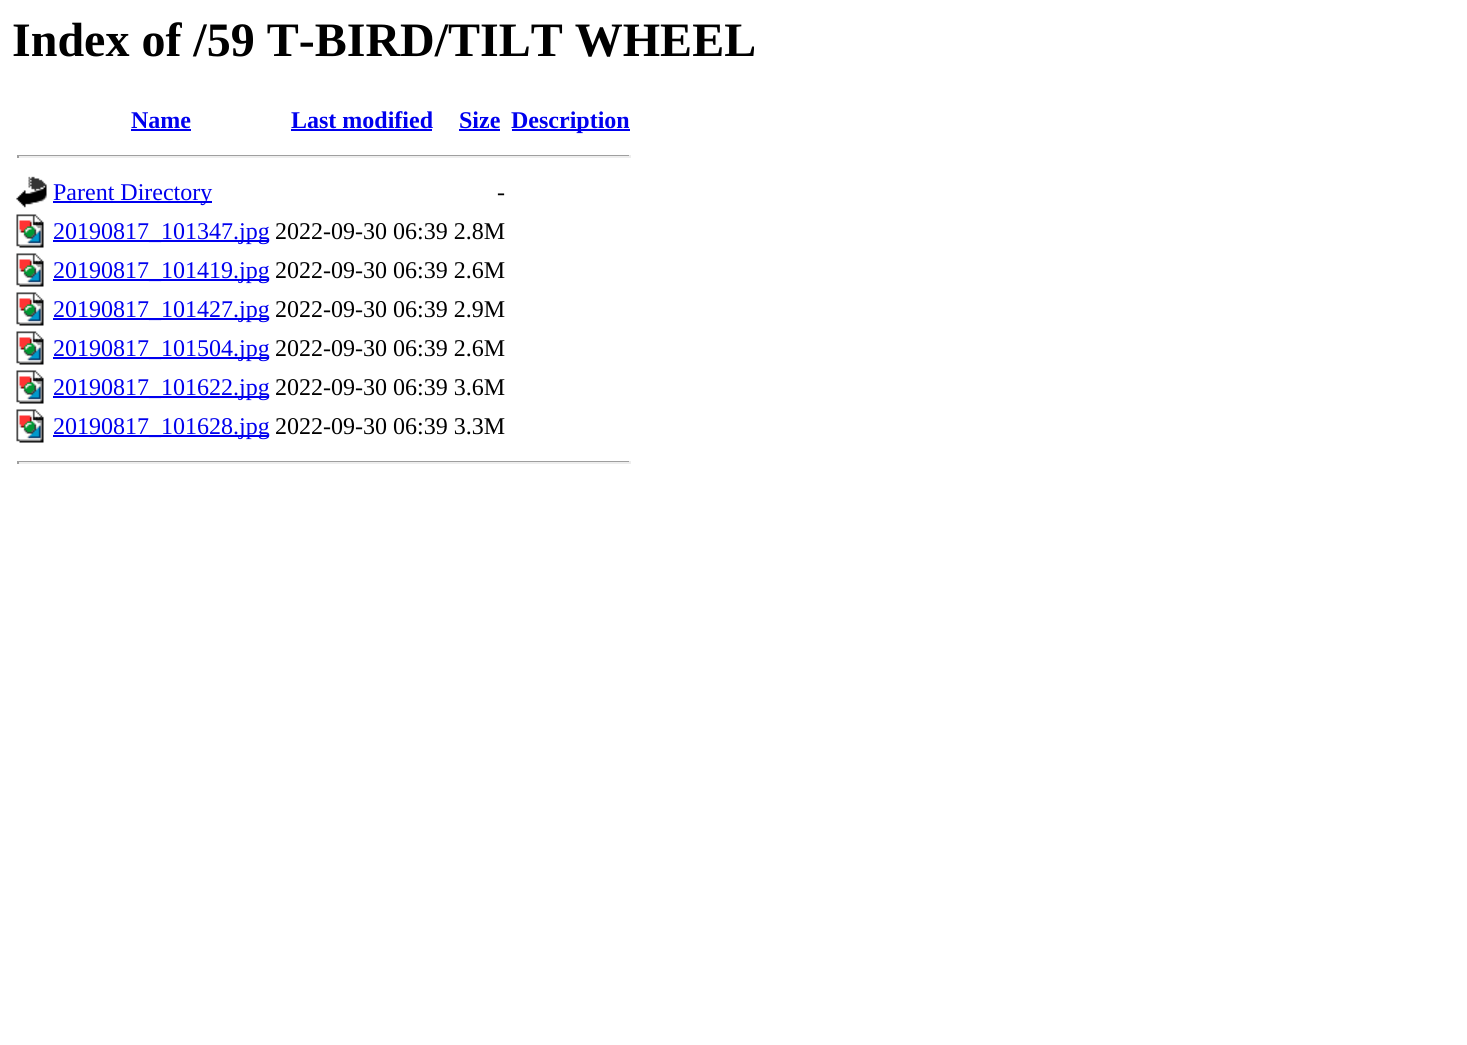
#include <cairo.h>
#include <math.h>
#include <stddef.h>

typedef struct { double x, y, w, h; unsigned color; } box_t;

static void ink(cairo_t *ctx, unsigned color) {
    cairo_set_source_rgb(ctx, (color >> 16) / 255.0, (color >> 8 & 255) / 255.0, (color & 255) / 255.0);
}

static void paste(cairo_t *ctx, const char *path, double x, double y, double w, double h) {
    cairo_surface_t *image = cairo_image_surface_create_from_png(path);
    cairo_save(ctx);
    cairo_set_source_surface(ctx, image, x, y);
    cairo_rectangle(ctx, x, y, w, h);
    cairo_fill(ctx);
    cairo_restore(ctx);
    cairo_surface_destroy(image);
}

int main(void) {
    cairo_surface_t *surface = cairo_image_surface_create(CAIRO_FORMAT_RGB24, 1467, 1045);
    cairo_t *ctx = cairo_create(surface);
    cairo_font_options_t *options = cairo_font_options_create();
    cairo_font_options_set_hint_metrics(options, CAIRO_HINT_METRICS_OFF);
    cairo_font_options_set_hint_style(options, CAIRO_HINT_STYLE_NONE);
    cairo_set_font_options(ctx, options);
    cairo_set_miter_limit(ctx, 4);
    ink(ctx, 0xFFFFFF);
    cairo_paint(ctx);
    cairo_select_font_face(ctx, "Liberation Serif", CAIRO_FONT_SLANT_NORMAL, CAIRO_FONT_WEIGHT_BOLD);
    cairo_set_font_size(ctx, 48);
    ink(ctx, 0x000000);
    cairo_move_to(ctx, 12, 56);
    cairo_show_text(ctx, "Index of /59 T-BIRD/TILT WHEEL");
    cairo_set_font_size(ctx, 24);
    ink(ctx, 0x0000EE);
    cairo_move_to(ctx, 131, 128);
    cairo_show_text(ctx, "Name");
    cairo_rectangle(ctx, 131, 129, 60, 2);
    cairo_fill(ctx);
    cairo_move_to(ctx, 291, 128);
    cairo_show_text(ctx, "Last modified");
    cairo_rectangle(ctx, 291, 129, 141, 2);
    cairo_fill(ctx);
    cairo_move_to(ctx, 459, 128);
    cairo_show_text(ctx, "Size");
    cairo_rectangle(ctx, 459, 129, 41, 2);
    cairo_fill(ctx);
    cairo_rectangle(ctx, 512, 129, 118, 2);
    cairo_fill(ctx);
    cairo_move_to(ctx, 511, 128);
    cairo_show_text(ctx, "Description");
    {
        static const box_t items[] = {
            {17, 155, 613, 1, 0x9F9F9F},
            {629, 155, 2, 3, 0xEEEEEE},
            {17, 156, 613, 2, 0xEEEEEE},
            {17, 155, 2, 3, 0x9F9F9F},
        };
        for (size_t i = 0; i < sizeof items / sizeof *items; i++) {
            ink(ctx, items[i].color);
            cairo_rectangle(ctx, items[i].x, items[i].y, items[i].w, items[i].h);
            cairo_fill(ctx);
        }
    }
    paste(ctx, "media/1.png", 16, 176, 31, 32);
    ink(ctx, 0x0000EE);
    cairo_rectangle(ctx, 53, 201, 159, 2);
    cairo_fill(ctx);
    cairo_select_font_face(ctx, "Liberation Serif", CAIRO_FONT_SLANT_NORMAL, CAIRO_FONT_WEIGHT_NORMAL);
    cairo_move_to(ctx, 53, 200);
    cairo_show_text(ctx, "Parent Directory");
    ink(ctx, 0x000000);
    cairo_move_to(ctx, 497, 200);
    cairo_show_text(ctx, "-");
    paste(ctx, "media/2.png", 16, 214, 28, 34);
    ink(ctx, 0x0000EE);
    cairo_rectangle(ctx, 53, 240, 216, 2);
    cairo_fill(ctx);
    cairo_move_to(ctx, 53, 239);
    cairo_show_text(ctx, "20190817_101347.jpg");
    ink(ctx, 0x000000);
    cairo_move_to(ctx, 275, 239);
    cairo_show_text(ctx, "2022-09-30 06:39 2.8M");
    paste(ctx, "media/2.png", 16, 253, 28, 34);
    ink(ctx, 0x0000EE);
    cairo_rectangle(ctx, 53, 279, 216, 2);
    cairo_fill(ctx);
    cairo_move_to(ctx, 53, 278);
    cairo_show_text(ctx, "20190817_101419.jpg");
    ink(ctx, 0x000000);
    cairo_move_to(ctx, 275, 278);
    cairo_show_text(ctx, "2022-09-30 06:39 2.6M");
    paste(ctx, "media/2.png", 16, 292, 28, 34);
    ink(ctx, 0x0000EE);
    cairo_rectangle(ctx, 53, 318, 216, 2);
    cairo_fill(ctx);
    cairo_move_to(ctx, 53, 317);
    cairo_show_text(ctx, "20190817_101427.jpg");
    ink(ctx, 0x000000);
    cairo_move_to(ctx, 275, 317);
    cairo_show_text(ctx, "2022-09-30 06:39 2.9M");
    paste(ctx, "media/2.png", 16, 331, 28, 34);
    ink(ctx, 0x0000EE);
    cairo_rectangle(ctx, 53, 357, 216, 2);
    cairo_fill(ctx);
    cairo_move_to(ctx, 53, 356);
    cairo_show_text(ctx, "20190817_101504.jpg");
    ink(ctx, 0x000000);
    cairo_move_to(ctx, 275, 356);
    cairo_show_text(ctx, "2022-09-30 06:39 2.6M");
    paste(ctx, "media/2.png", 16, 370, 28, 34);
    ink(ctx, 0x0000EE);
    cairo_rectangle(ctx, 53, 396, 216, 2);
    cairo_fill(ctx);
    cairo_move_to(ctx, 53, 395);
    cairo_show_text(ctx, "20190817_101622.jpg");
    ink(ctx, 0x000000);
    cairo_move_to(ctx, 275, 395);
    cairo_show_text(ctx, "2022-09-30 06:39 3.6M");
    paste(ctx, "media/2.png", 16, 409, 28, 34);
    ink(ctx, 0x0000EE);
    cairo_rectangle(ctx, 53, 435, 216, 2);
    cairo_fill(ctx);
    cairo_move_to(ctx, 53, 434);
    cairo_show_text(ctx, "20190817_101628.jpg");
    ink(ctx, 0x000000);
    cairo_move_to(ctx, 275, 434);
    cairo_show_text(ctx, "2022-09-30 06:39 3.3M");
    {
        static const box_t items[] = {
            {17, 461, 613, 1, 0x9F9F9F},
            {629, 461, 2, 3, 0xEEEEEE},
            {17, 462, 613, 2, 0xEEEEEE},
            {17, 461, 2, 3, 0x9F9F9F},
        };
        for (size_t i = 0; i < sizeof items / sizeof *items; i++) {
            ink(ctx, items[i].color);
            cairo_rectangle(ctx, items[i].x, items[i].y, items[i].w, items[i].h);
            cairo_fill(ctx);
        }
    }
    cairo_surface_write_to_png(surface, "image.png");
    cairo_font_options_destroy(options);
    cairo_destroy(ctx);
    cairo_surface_destroy(surface);
    return 0;
}
